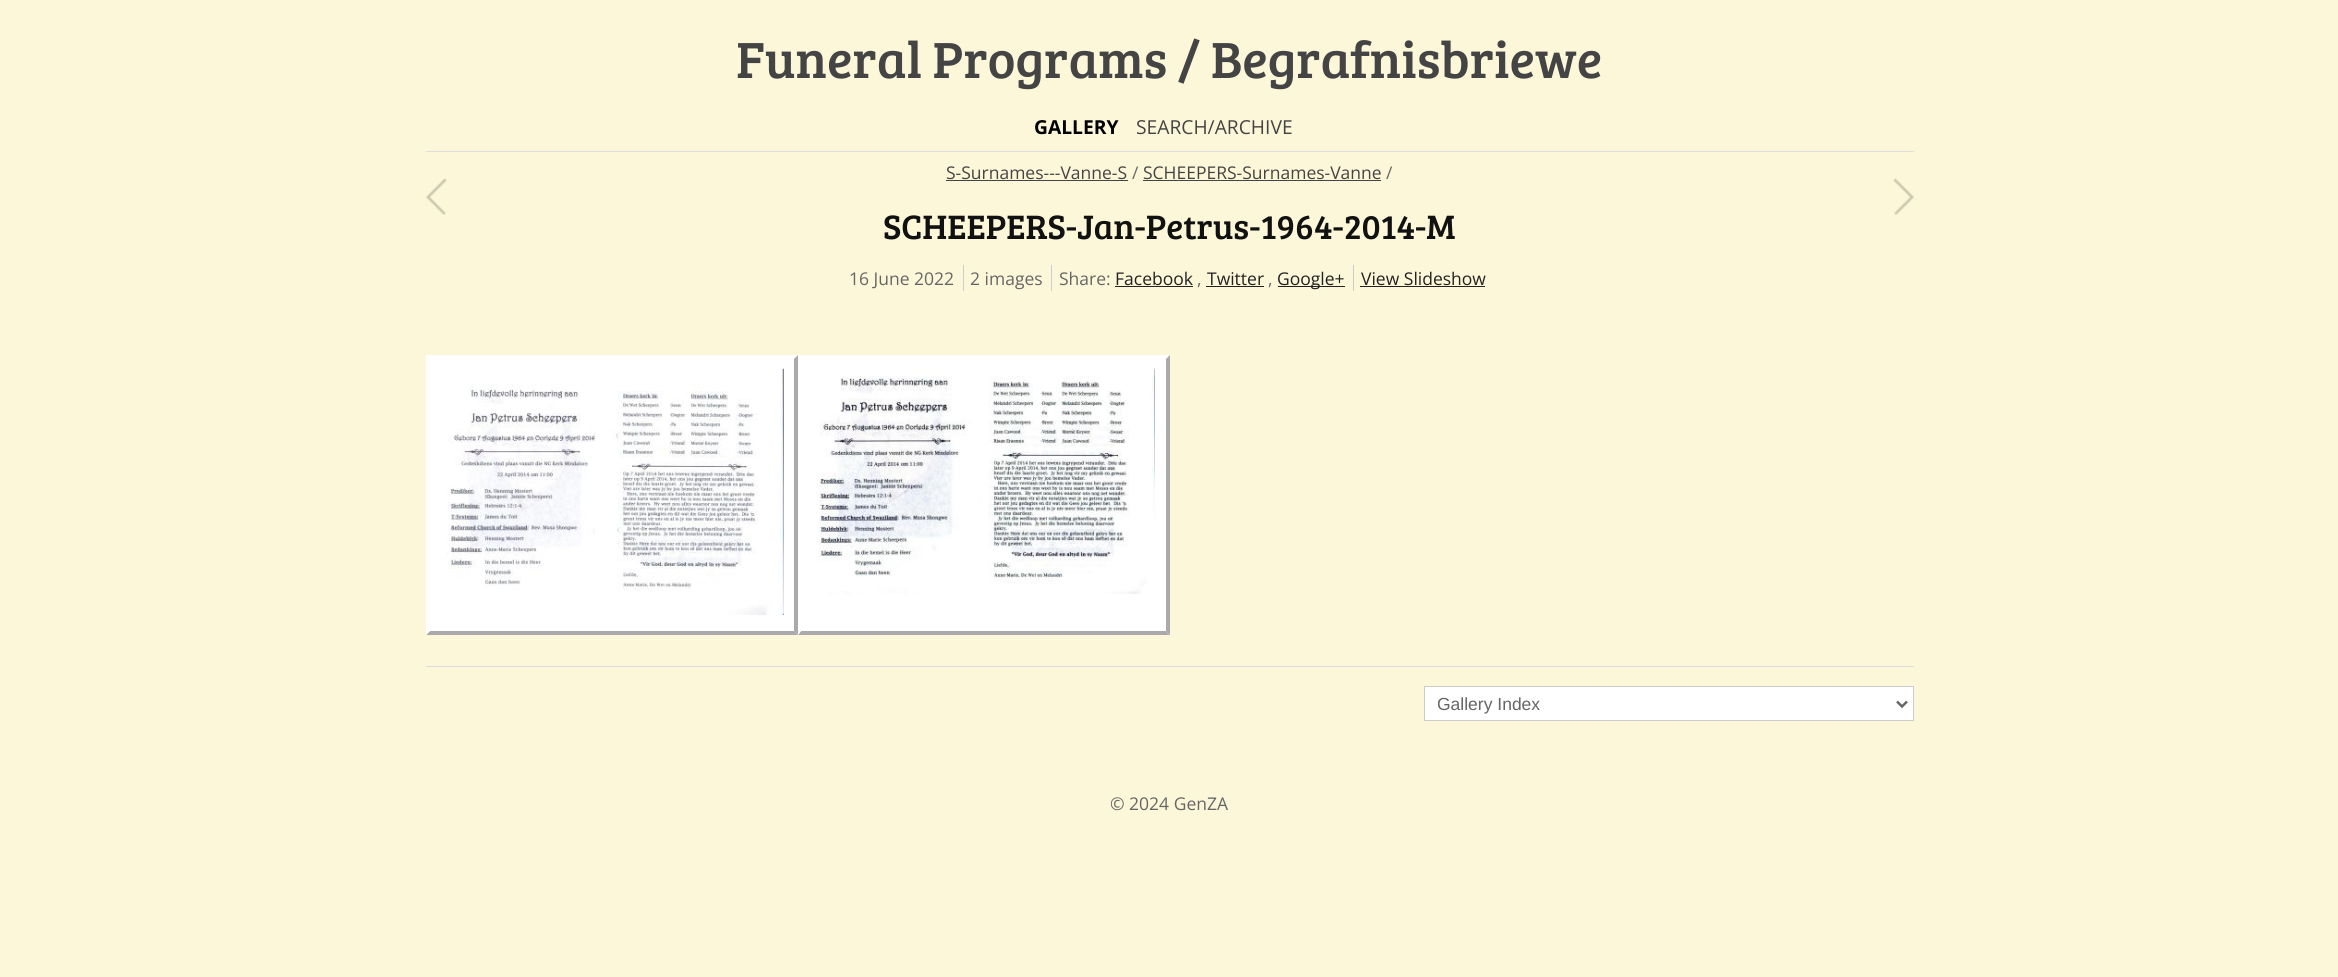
#include <cairo.h>
#include <math.h>
#include <stddef.h>


static void ink(cairo_t *ctx, unsigned color) {
    cairo_set_source_rgb(ctx, (color >> 16) / 255.0, (color >> 8 & 255) / 255.0, (color & 255) / 255.0);
}

static void paste(cairo_t *ctx, const char *path, double x, double y, double w, double h) {
    cairo_surface_t *image = cairo_image_surface_create_from_png(path);
    cairo_save(ctx);
    cairo_set_source_surface(ctx, image, x, y);
    cairo_rectangle(ctx, x, y, w, h);
    cairo_fill(ctx);
    cairo_restore(ctx);
    cairo_surface_destroy(image);
}

int main(void) {
    cairo_surface_t *surface = cairo_image_surface_create(CAIRO_FORMAT_RGB24, 2338, 977);
    cairo_t *ctx = cairo_create(surface);
    cairo_font_options_t *options = cairo_font_options_create();
    cairo_font_options_set_hint_metrics(options, CAIRO_HINT_METRICS_OFF);
    cairo_font_options_set_hint_style(options, CAIRO_HINT_STYLE_NONE);
    cairo_set_font_options(ctx, options);
    cairo_set_miter_limit(ctx, 4);
    ink(ctx, 0xFCF7D9);
    cairo_paint(ctx);
    ink(ctx, 0xDDDDDD);
    cairo_rectangle(ctx, 426, 151, 1488, 1);
    cairo_fill(ctx);
    cairo_select_font_face(ctx, "Bree Serif", CAIRO_FONT_SLANT_NORMAL, CAIRO_FONT_WEIGHT_NORMAL);
    cairo_set_font_size(ctx, 52.5);
    ink(ctx, 0x444444);
    cairo_move_to(ctx, 736, 78);
    cairo_show_text(ctx, "Funeral Programs / Begrafnisbriewe");
    cairo_select_font_face(ctx, "Open Sans", CAIRO_FONT_SLANT_NORMAL, CAIRO_FONT_WEIGHT_BOLD);
    cairo_set_font_size(ctx, 19.25);
    ink(ctx, 0x000000);
    cairo_move_to(ctx, 1034, 134);
    cairo_show_text(ctx, "GALLERY");
    cairo_select_font_face(ctx, "Open Sans", CAIRO_FONT_SLANT_NORMAL, CAIRO_FONT_WEIGHT_NORMAL);
    ink(ctx, 0x444444);
    cairo_move_to(ctx, 1136, 134);
    cairo_show_text(ctx, "SEARCH/ARCHIVE");
    paste(ctx, "media/1.png", 426, 178, 21, 37);
    cairo_set_font_size(ctx, 17.5);
    cairo_move_to(ctx, 946, 179);
    cairo_show_text(ctx, "S-Surnames---Vanne-S");
    cairo_rectangle(ctx, 946, 180, 182, 1);
    cairo_fill(ctx);
    ink(ctx, 0x666666);
    cairo_move_to(ctx, 1132, 179);
    cairo_show_text(ctx, "/");
    ink(ctx, 0x444444);
    cairo_move_to(ctx, 1143, 179);
    cairo_show_text(ctx, "SCHEEPERS-Surnames-Vanne");
    cairo_rectangle(ctx, 1143, 180, 238, 1);
    cairo_fill(ctx);
    ink(ctx, 0x666666);
    cairo_move_to(ctx, 1386, 179);
    cairo_show_text(ctx, "/");
    cairo_select_font_face(ctx, "Bree Serif", CAIRO_FONT_SLANT_NORMAL, CAIRO_FONT_WEIGHT_NORMAL);
    cairo_set_font_size(ctx, 35);
    ink(ctx, 0x111111);
    cairo_move_to(ctx, 883, 239);
    cairo_show_text(ctx, "SCHEEPERS-Jan-Petrus-1964-2014-M");
    paste(ctx, "media/2.png", 1893, 178, 21, 37);
    cairo_select_font_face(ctx, "Open Sans", CAIRO_FONT_SLANT_NORMAL, CAIRO_FONT_WEIGHT_NORMAL);
    cairo_set_font_size(ctx, 17.5);
    ink(ctx, 0x666666);
    cairo_move_to(ctx, 849, 285);
    cairo_show_text(ctx, "16 June 2022");
    ink(ctx, 0xCCCCCC);
    cairo_rectangle(ctx, 963, 265, 1, 26);
    cairo_fill(ctx);
    ink(ctx, 0x666666);
    cairo_move_to(ctx, 970, 285);
    cairo_show_text(ctx, "2 images");
    ink(ctx, 0xCCCCCC);
    cairo_rectangle(ctx, 1051, 265, 1, 26);
    cairo_fill(ctx);
    ink(ctx, 0x666666);
    cairo_move_to(ctx, 1059, 285);
    cairo_show_text(ctx, "Share:");
    ink(ctx, 0x222222);
    cairo_move_to(ctx, 1115, 285);
    cairo_show_text(ctx, "Facebook");
    cairo_rectangle(ctx, 1115, 286, 78, 1);
    cairo_fill(ctx);
    ink(ctx, 0x666666);
    cairo_move_to(ctx, 1197, 285);
    cairo_show_text(ctx, ",");
    ink(ctx, 0x222222);
    cairo_move_to(ctx, 1207, 285);
    cairo_show_text(ctx, "Twitter");
    cairo_rectangle(ctx, 1206, 286, 58, 1);
    cairo_fill(ctx);
    ink(ctx, 0x666666);
    cairo_move_to(ctx, 1268, 285);
    cairo_show_text(ctx, ",");
    ink(ctx, 0x222222);
    cairo_rectangle(ctx, 1278, 286, 67, 1);
    cairo_fill(ctx);
    cairo_move_to(ctx, 1277, 285);
    cairo_show_text(ctx, "Google+");
    ink(ctx, 0xCCCCCC);
    cairo_rectangle(ctx, 1353, 265, 1, 26);
    cairo_fill(ctx);
    ink(ctx, 0x222222);
    cairo_move_to(ctx, 1361, 285);
    cairo_show_text(ctx, "View Slideshow");
    cairo_rectangle(ctx, 1360, 286, 125, 1);
    cairo_fill(ctx);
    ink(ctx, 0xFFFFFF);
    cairo_rectangle(ctx, 426, 355, 744, 280);
    cairo_fill(ctx);
    ink(ctx, 0xAAAAAA);
    cairo_new_path(ctx);
    cairo_move_to(ctx, 798, 355);
    cairo_line_to(ctx, 798, 635);
    cairo_line_to(ctx, 794, 631);
    cairo_line_to(ctx, 794, 359);
    cairo_close_path(ctx);
    cairo_fill(ctx);
    cairo_new_path(ctx);
    cairo_move_to(ctx, 798, 635);
    cairo_line_to(ctx, 426, 635);
    cairo_line_to(ctx, 430, 631);
    cairo_line_to(ctx, 794, 631);
    cairo_close_path(ctx);
    cairo_fill(ctx);
    ink(ctx, 0xFFFFFF);
    cairo_new_path(ctx);
    cairo_move_to(ctx, 426, 635);
    cairo_line_to(ctx, 426, 355);
    cairo_line_to(ctx, 430, 359);
    cairo_line_to(ctx, 430, 631);
    cairo_close_path(ctx);
    cairo_fill(ctx);
    paste(ctx, "media/3.png", 447, 368, 337, 247);
    ink(ctx, 0xAAAAAA);
    cairo_new_path(ctx);
    cairo_move_to(ctx, 1170, 355);
    cairo_line_to(ctx, 1170, 635);
    cairo_line_to(ctx, 1166, 631);
    cairo_line_to(ctx, 1166, 359);
    cairo_close_path(ctx);
    cairo_fill(ctx);
    cairo_new_path(ctx);
    cairo_move_to(ctx, 1170, 635);
    cairo_line_to(ctx, 798, 635);
    cairo_line_to(ctx, 801, 631);
    cairo_line_to(ctx, 1166, 631);
    cairo_close_path(ctx);
    cairo_fill(ctx);
    ink(ctx, 0xFFFFFF);
    cairo_new_path(ctx);
    cairo_move_to(ctx, 798, 635);
    cairo_line_to(ctx, 798, 355);
    cairo_line_to(ctx, 801, 359);
    cairo_line_to(ctx, 801, 631);
    cairo_close_path(ctx);
    cairo_fill(ctx);
    paste(ctx, "media/4.png", 818, 368, 337, 226);
    ink(ctx, 0xDDDDDD);
    cairo_rectangle(ctx, 426, 666, 1488, 1);
    cairo_fill(ctx);
    ink(ctx, 0xFFFFFF);
    cairo_rectangle(ctx, 1424.5, 686.5, 489, 34);
    cairo_fill_preserve(ctx);
    ink(ctx, 0xCCCCCC);
    cairo_set_line_width(ctx, 1);
    cairo_stroke(ctx);
    cairo_new_path(ctx);
    cairo_move_to(ctx, 1897, 701.5);
    cairo_line_to(ctx, 1902, 706.5);
    cairo_line_to(ctx, 1907, 701.5);
    ink(ctx, 0x666666);
    cairo_set_line_width(ctx, 2.5);
    cairo_stroke(ctx);
    cairo_save(ctx);
    cairo_rectangle(ctx, 1438, 693, 447, 22);
    cairo_clip(ctx);
    cairo_select_font_face(ctx, "Liberation Sans", CAIRO_FONT_SLANT_NORMAL, CAIRO_FONT_WEIGHT_NORMAL);
    cairo_move_to(ctx, 1437, 710);
    cairo_show_text(ctx, "Gallery Index");
    cairo_restore(ctx);
    cairo_move_to(ctx, 1110, 810);
    cairo_show_text(ctx, "© 2024 GenZA");
    cairo_surface_write_to_png(surface, "image.png");
    cairo_font_options_destroy(options);
    cairo_destroy(ctx);
    cairo_surface_destroy(surface);
    return 0;
}
